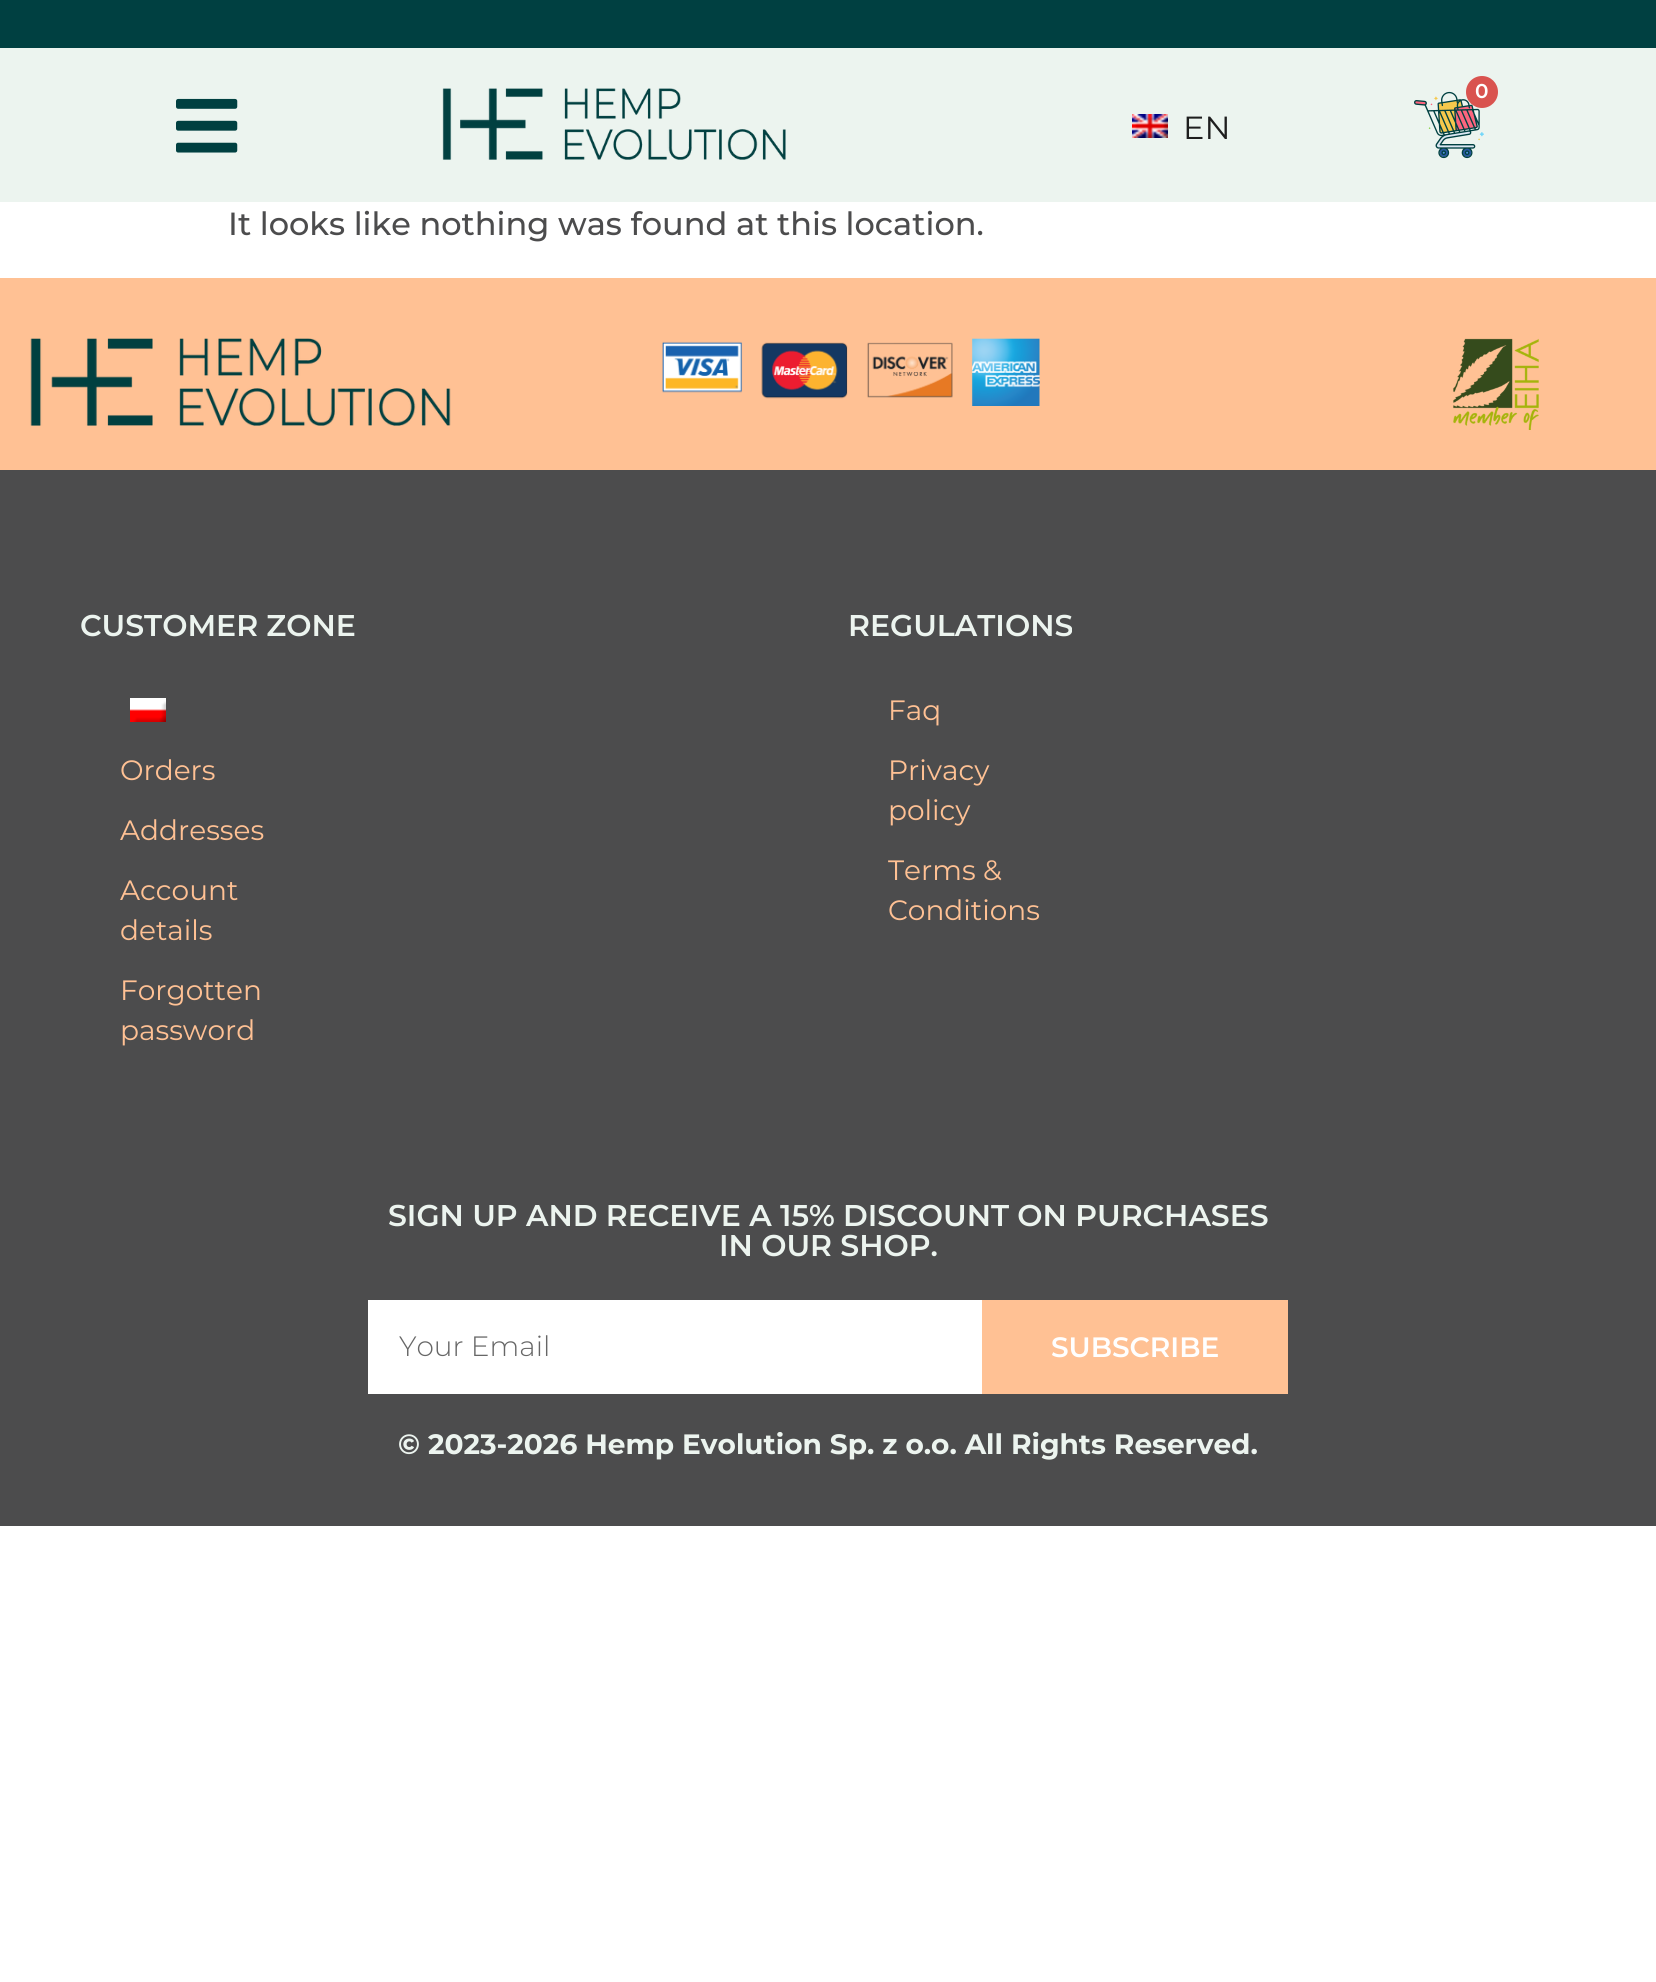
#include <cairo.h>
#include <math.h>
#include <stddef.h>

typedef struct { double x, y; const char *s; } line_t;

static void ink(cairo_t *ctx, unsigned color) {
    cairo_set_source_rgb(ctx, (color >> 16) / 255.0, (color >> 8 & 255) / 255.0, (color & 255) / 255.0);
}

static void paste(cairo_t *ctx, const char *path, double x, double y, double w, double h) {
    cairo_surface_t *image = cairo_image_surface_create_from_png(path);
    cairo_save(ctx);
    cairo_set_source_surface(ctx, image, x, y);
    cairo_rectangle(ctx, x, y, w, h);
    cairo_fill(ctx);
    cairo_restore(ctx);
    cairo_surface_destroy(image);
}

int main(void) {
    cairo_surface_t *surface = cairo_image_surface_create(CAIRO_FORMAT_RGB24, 1656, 1982);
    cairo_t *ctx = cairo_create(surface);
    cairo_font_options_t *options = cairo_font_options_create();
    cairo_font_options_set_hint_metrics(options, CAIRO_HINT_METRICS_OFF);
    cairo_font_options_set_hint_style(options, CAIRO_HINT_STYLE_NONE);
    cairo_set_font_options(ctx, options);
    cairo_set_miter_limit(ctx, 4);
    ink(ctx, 0xFFFFFF);
    cairo_paint(ctx);
    ink(ctx, 0x004041);
    cairo_rectangle(ctx, 0, 0, 1656, 48);
    cairo_fill(ctx);
    ink(ctx, 0xECF4EF);
    cairo_rectangle(ctx, 0, 48, 1656, 154);
    cairo_fill(ctx);
    paste(ctx, "media/1.png", 176, 98, 62, 55);
    paste(ctx, "media/2.png", 442, 88, 344, 72);
    paste(ctx, "media/3.png", 1132, 114, 36, 24);
    cairo_select_font_face(ctx, "Montserrat", CAIRO_FONT_SLANT_NORMAL, CAIRO_FONT_WEIGHT_NORMAL);
    cairo_set_font_size(ctx, 32);
    ink(ctx, 0x1E1E1E);
    cairo_move_to(ctx, 1183, 139);
    cairo_show_text(ctx, "EN");
    paste(ctx, "media/4.png", 1414, 91, 70, 68);
    ink(ctx, 0xD9534F);
    cairo_arc(ctx, 1482, 92, 16, 0, 2 * M_PI);
    cairo_fill(ctx);
    cairo_select_font_face(ctx, "Montserrat SemiBold", CAIRO_FONT_SLANT_NORMAL, CAIRO_FONT_WEIGHT_NORMAL);
    cairo_set_font_size(ctx, 20);
    ink(ctx, 0xFFFFFF);
    cairo_move_to(ctx, 1475, 98);
    cairo_show_text(ctx, "0");
    cairo_select_font_face(ctx, "Montserrat Medium", CAIRO_FONT_SLANT_NORMAL, CAIRO_FONT_WEIGHT_NORMAL);
    cairo_set_font_size(ctx, 32);
    ink(ctx, 0x4C4C4D);
    cairo_move_to(ctx, 228, 235);
    cairo_show_text(ctx, "It looks like nothing was found at this location.");
    ink(ctx, 0xFFC194);
    cairo_rectangle(ctx, 0, 278, 1656, 192);
    cairo_fill(ctx);
    paste(ctx, "media/5.png", 30, 338, 421, 88);
    paste(ctx, "media/6.png", 662, 338, 378, 68);
    paste(ctx, "media/7.png", 1453, 338, 86, 92);
    ink(ctx, 0x4C4C4D);
    cairo_rectangle(ctx, 0, 470, 1656, 1056);
    cairo_fill(ctx);
    cairo_select_font_face(ctx, "Montserrat SemiBold", CAIRO_FONT_SLANT_NORMAL, CAIRO_FONT_WEIGHT_NORMAL);
    cairo_set_font_size(ctx, 30);
    ink(ctx, 0xECF4EF);
    cairo_move_to(ctx, 80, 636);
    cairo_show_text(ctx, "CUSTOMER ZONE");
    paste(ctx, "media/8.png", 130, 698, 36, 24);
    cairo_select_font_face(ctx, "Montserrat", CAIRO_FONT_SLANT_NORMAL, CAIRO_FONT_WEIGHT_NORMAL);
    cairo_set_font_size(ctx, 28);
    ink(ctx, 0xFFC194);
    {
        static const line_t items[] = {
            {120, 780, "Orders"},
            {120, 840, "Addresses"},
            {120, 900, "Account"},
            {120, 940, "details"},
            {120, 1000, "Forgotten"},
            {120, 1040, "password"},
        };
        for (size_t i = 0; i < sizeof items / sizeof *items; i++) {
            cairo_move_to(ctx, items[i].x, items[i].y);
            cairo_show_text(ctx, items[i].s);
        }
    }
    cairo_select_font_face(ctx, "Montserrat SemiBold", CAIRO_FONT_SLANT_NORMAL, CAIRO_FONT_WEIGHT_NORMAL);
    cairo_set_font_size(ctx, 30);
    ink(ctx, 0xECF4EF);
    cairo_move_to(ctx, 848, 636);
    cairo_show_text(ctx, "REGULATIONS");
    cairo_select_font_face(ctx, "Montserrat", CAIRO_FONT_SLANT_NORMAL, CAIRO_FONT_WEIGHT_NORMAL);
    cairo_set_font_size(ctx, 28);
    ink(ctx, 0xFFC194);
    {
        static const line_t items[] = {
            {888, 720, "Faq"},
            {888, 780, "Privacy"},
            {888, 820, "policy"},
            {888, 880, "Terms &"},
            {888, 920, "Conditions"},
        };
        for (size_t i = 0; i < sizeof items / sizeof *items; i++) {
            cairo_move_to(ctx, items[i].x, items[i].y);
            cairo_show_text(ctx, items[i].s);
        }
    }
    cairo_select_font_face(ctx, "Montserrat SemiBold", CAIRO_FONT_SLANT_NORMAL, CAIRO_FONT_WEIGHT_NORMAL);
    cairo_set_font_size(ctx, 30);
    ink(ctx, 0xECF4EF);
    cairo_move_to(ctx, 388, 1226);
    cairo_show_text(ctx, "SIGN UP AND RECEIVE A 15% DISCOUNT ON PURCHASES");
    cairo_move_to(ctx, 719, 1256);
    cairo_show_text(ctx, "IN OUR SHOP.");
    ink(ctx, 0xFFFFFF);
    cairo_rectangle(ctx, 368, 1300, 614, 94);
    cairo_fill(ctx);
    cairo_select_font_face(ctx, "Montserrat Light", CAIRO_FONT_SLANT_NORMAL, CAIRO_FONT_WEIGHT_NORMAL);
    cairo_set_font_size(ctx, 28);
    ink(ctx, 0x666666);
    cairo_move_to(ctx, 399, 1356);
    cairo_show_text(ctx, "Your Email");
    ink(ctx, 0xFFC194);
    cairo_rectangle(ctx, 982, 1300, 306, 94);
    cairo_fill(ctx);
    cairo_select_font_face(ctx, "Montserrat SemiBold", CAIRO_FONT_SLANT_NORMAL, CAIRO_FONT_WEIGHT_NORMAL);
    ink(ctx, 0xFFFFFF);
    cairo_move_to(ctx, 1051, 1357);
    cairo_show_text(ctx, "SUBSCRIBE");
    cairo_select_font_face(ctx, "Montserrat", CAIRO_FONT_SLANT_NORMAL, CAIRO_FONT_WEIGHT_BOLD);
    ink(ctx, 0xECF4EF);
    cairo_move_to(ctx, 398, 1454);
    cairo_show_text(ctx, "© 2023-2026 Hemp Evolution Sp. z o.o. All Rights Reserved.");
    cairo_surface_write_to_png(surface, "image.png");
    cairo_font_options_destroy(options);
    cairo_destroy(ctx);
    cairo_surface_destroy(surface);
    return 0;
}
